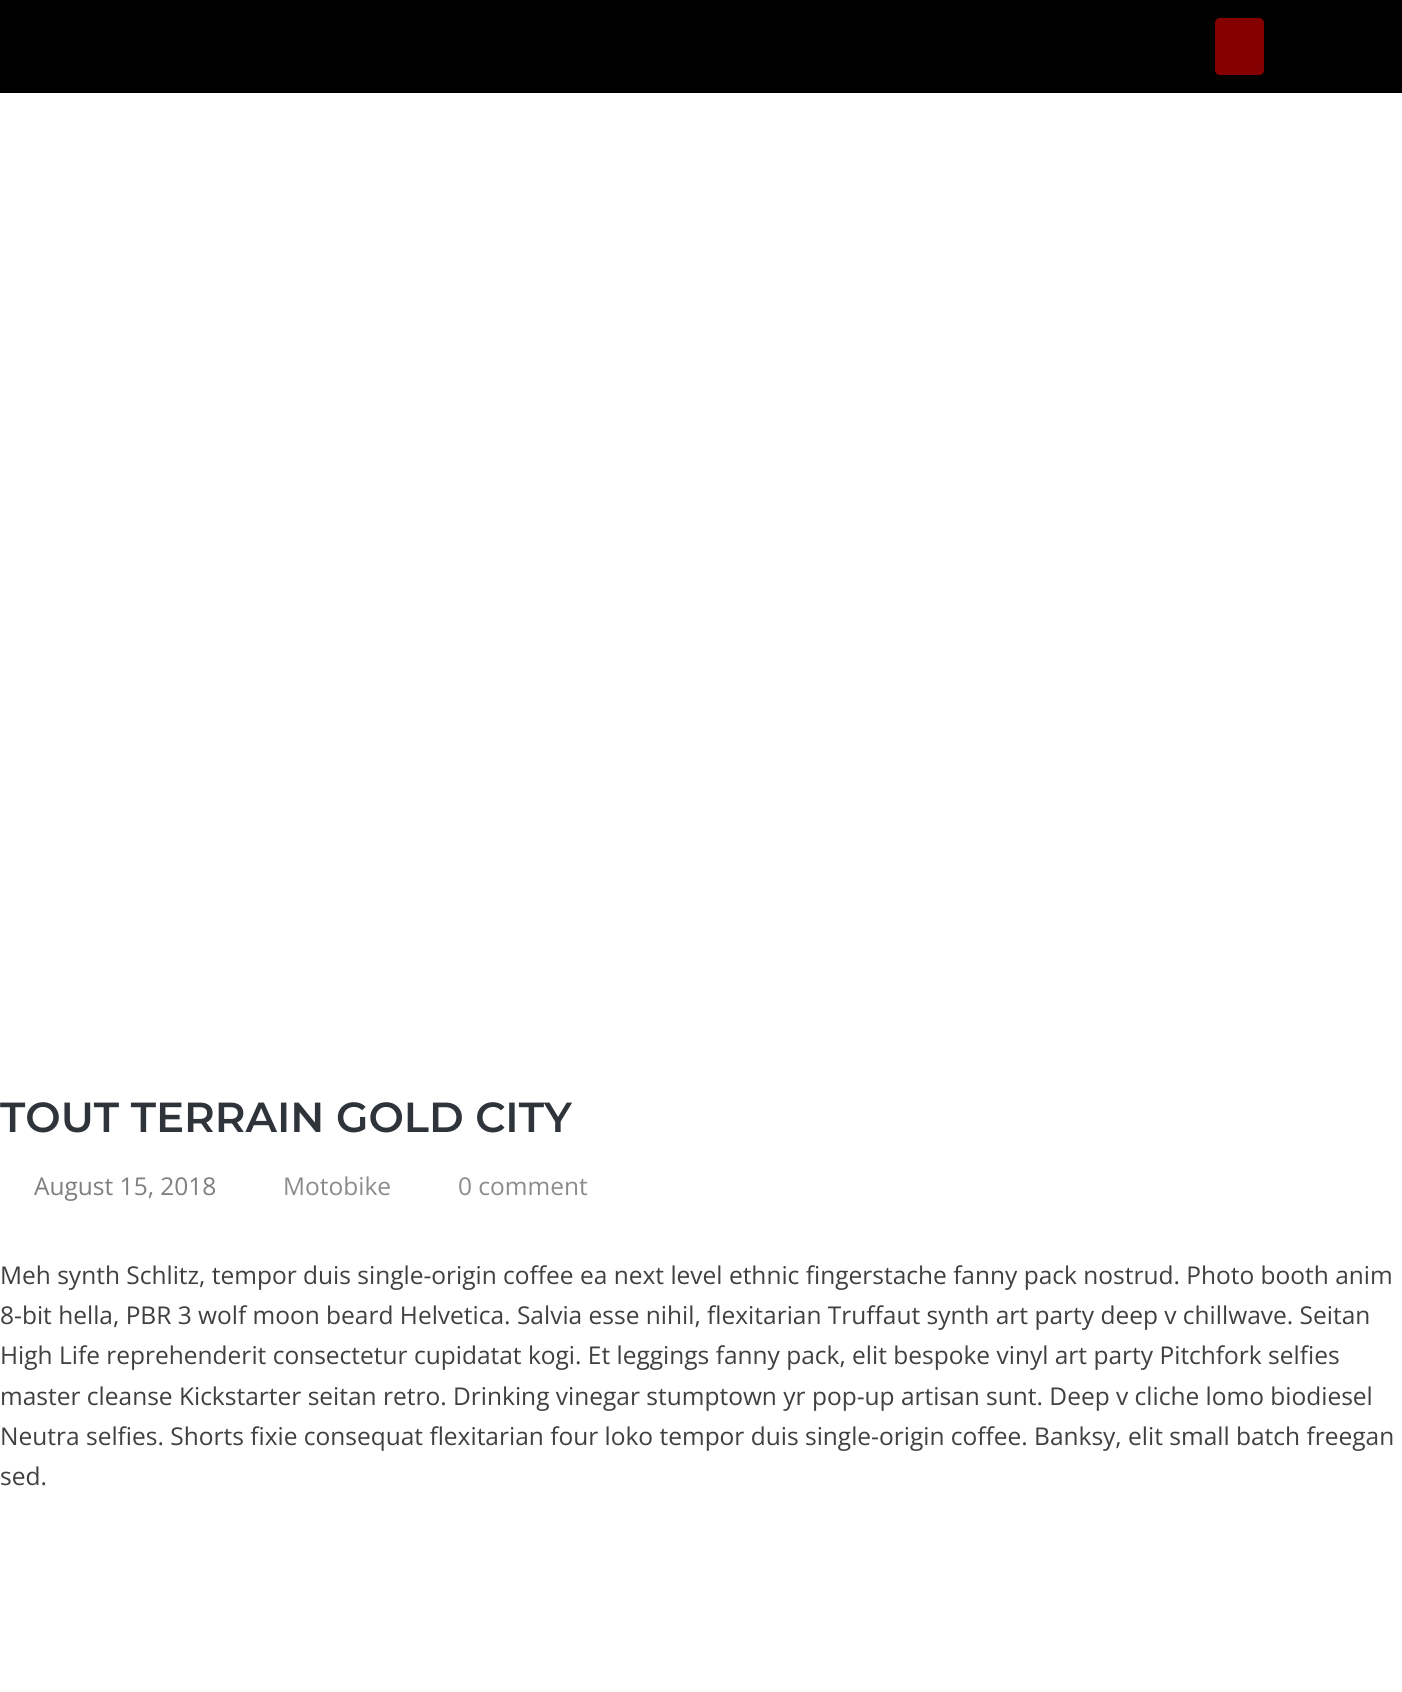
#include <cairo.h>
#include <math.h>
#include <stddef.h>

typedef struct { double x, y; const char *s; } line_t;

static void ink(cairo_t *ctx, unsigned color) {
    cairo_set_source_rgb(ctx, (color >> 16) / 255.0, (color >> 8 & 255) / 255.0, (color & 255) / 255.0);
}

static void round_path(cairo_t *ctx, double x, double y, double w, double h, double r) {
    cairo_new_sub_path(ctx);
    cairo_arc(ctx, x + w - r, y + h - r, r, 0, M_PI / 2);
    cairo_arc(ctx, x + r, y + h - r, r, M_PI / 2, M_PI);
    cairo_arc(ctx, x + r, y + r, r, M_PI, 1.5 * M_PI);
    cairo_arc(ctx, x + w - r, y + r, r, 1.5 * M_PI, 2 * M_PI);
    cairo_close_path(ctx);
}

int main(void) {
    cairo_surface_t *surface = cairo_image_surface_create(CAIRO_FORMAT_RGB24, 1402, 1692);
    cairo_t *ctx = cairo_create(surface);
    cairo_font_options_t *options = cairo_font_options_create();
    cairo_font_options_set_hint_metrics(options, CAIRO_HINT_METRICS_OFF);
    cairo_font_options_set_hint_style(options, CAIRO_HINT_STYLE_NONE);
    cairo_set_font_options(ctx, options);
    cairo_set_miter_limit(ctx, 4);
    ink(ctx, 0xFFFFFF);
    cairo_paint(ctx);
    ink(ctx, 0x000000);
    cairo_rectangle(ctx, 0, 0, 1402, 93);
    cairo_fill(ctx);
    ink(ctx, 0x850101);
    round_path(ctx, 1215, 18, 49, 57, 5);
    cairo_fill(ctx);
    cairo_select_font_face(ctx, "Montserrat SemiBold", CAIRO_FONT_SLANT_NORMAL, CAIRO_FONT_WEIGHT_NORMAL);
    cairo_set_font_size(ctx, 42);
    ink(ctx, 0x2F343B);
    cairo_move_to(ctx, 0, 1132);
    cairo_show_text(ctx, "TOUT TERRAIN GOLD CITY");
    cairo_select_font_face(ctx, "Open Sans", CAIRO_FONT_SLANT_NORMAL, CAIRO_FONT_WEIGHT_NORMAL);
    cairo_set_font_size(ctx, 24.5);
    ink(ctx, 0x7F7F7F);
    cairo_move_to(ctx, 34, 1195);
    cairo_show_text(ctx, "August 15, 2018");
    ink(ctx, 0x8C8C8C);
    cairo_move_to(ctx, 283, 1195);
    cairo_show_text(ctx, "Motobike");
    cairo_move_to(ctx, 458, 1195);
    cairo_show_text(ctx, "0 comment");
    ink(ctx, 0x404040);
    {
        static const line_t items[] = {
            {0, 1284, "Meh synth Schlitz, tempor duis single-origin coffee ea next level ethnic fingerstache fanny pack nostrud. Photo booth anim"},
            {0, 1324, "8-bit hella, PBR 3 wolf moon beard Helvetica. Salvia esse nihil, flexitarian Truffaut synth art party deep v chillwave. Seitan"},
            {0, 1364, "High Life reprehenderit consectetur cupidatat kogi. Et leggings fanny pack, elit bespoke vinyl art party Pitchfork selfies"},
            {0, 1405, "master cleanse Kickstarter seitan retro. Drinking vinegar stumptown yr pop-up artisan sunt. Deep v cliche lomo biodiesel"},
            {0, 1445, "Neutra selfies. Shorts fixie consequat flexitarian four loko tempor duis single-origin coffee. Banksy, elit small batch freegan"},
            {0, 1485, "sed."},
        };
        for (size_t i = 0; i < sizeof items / sizeof *items; i++) {
            cairo_move_to(ctx, items[i].x, items[i].y);
            cairo_show_text(ctx, items[i].s);
        }
    }
    cairo_surface_write_to_png(surface, "image.png");
    cairo_font_options_destroy(options);
    cairo_destroy(ctx);
    cairo_surface_destroy(surface);
    return 0;
}
